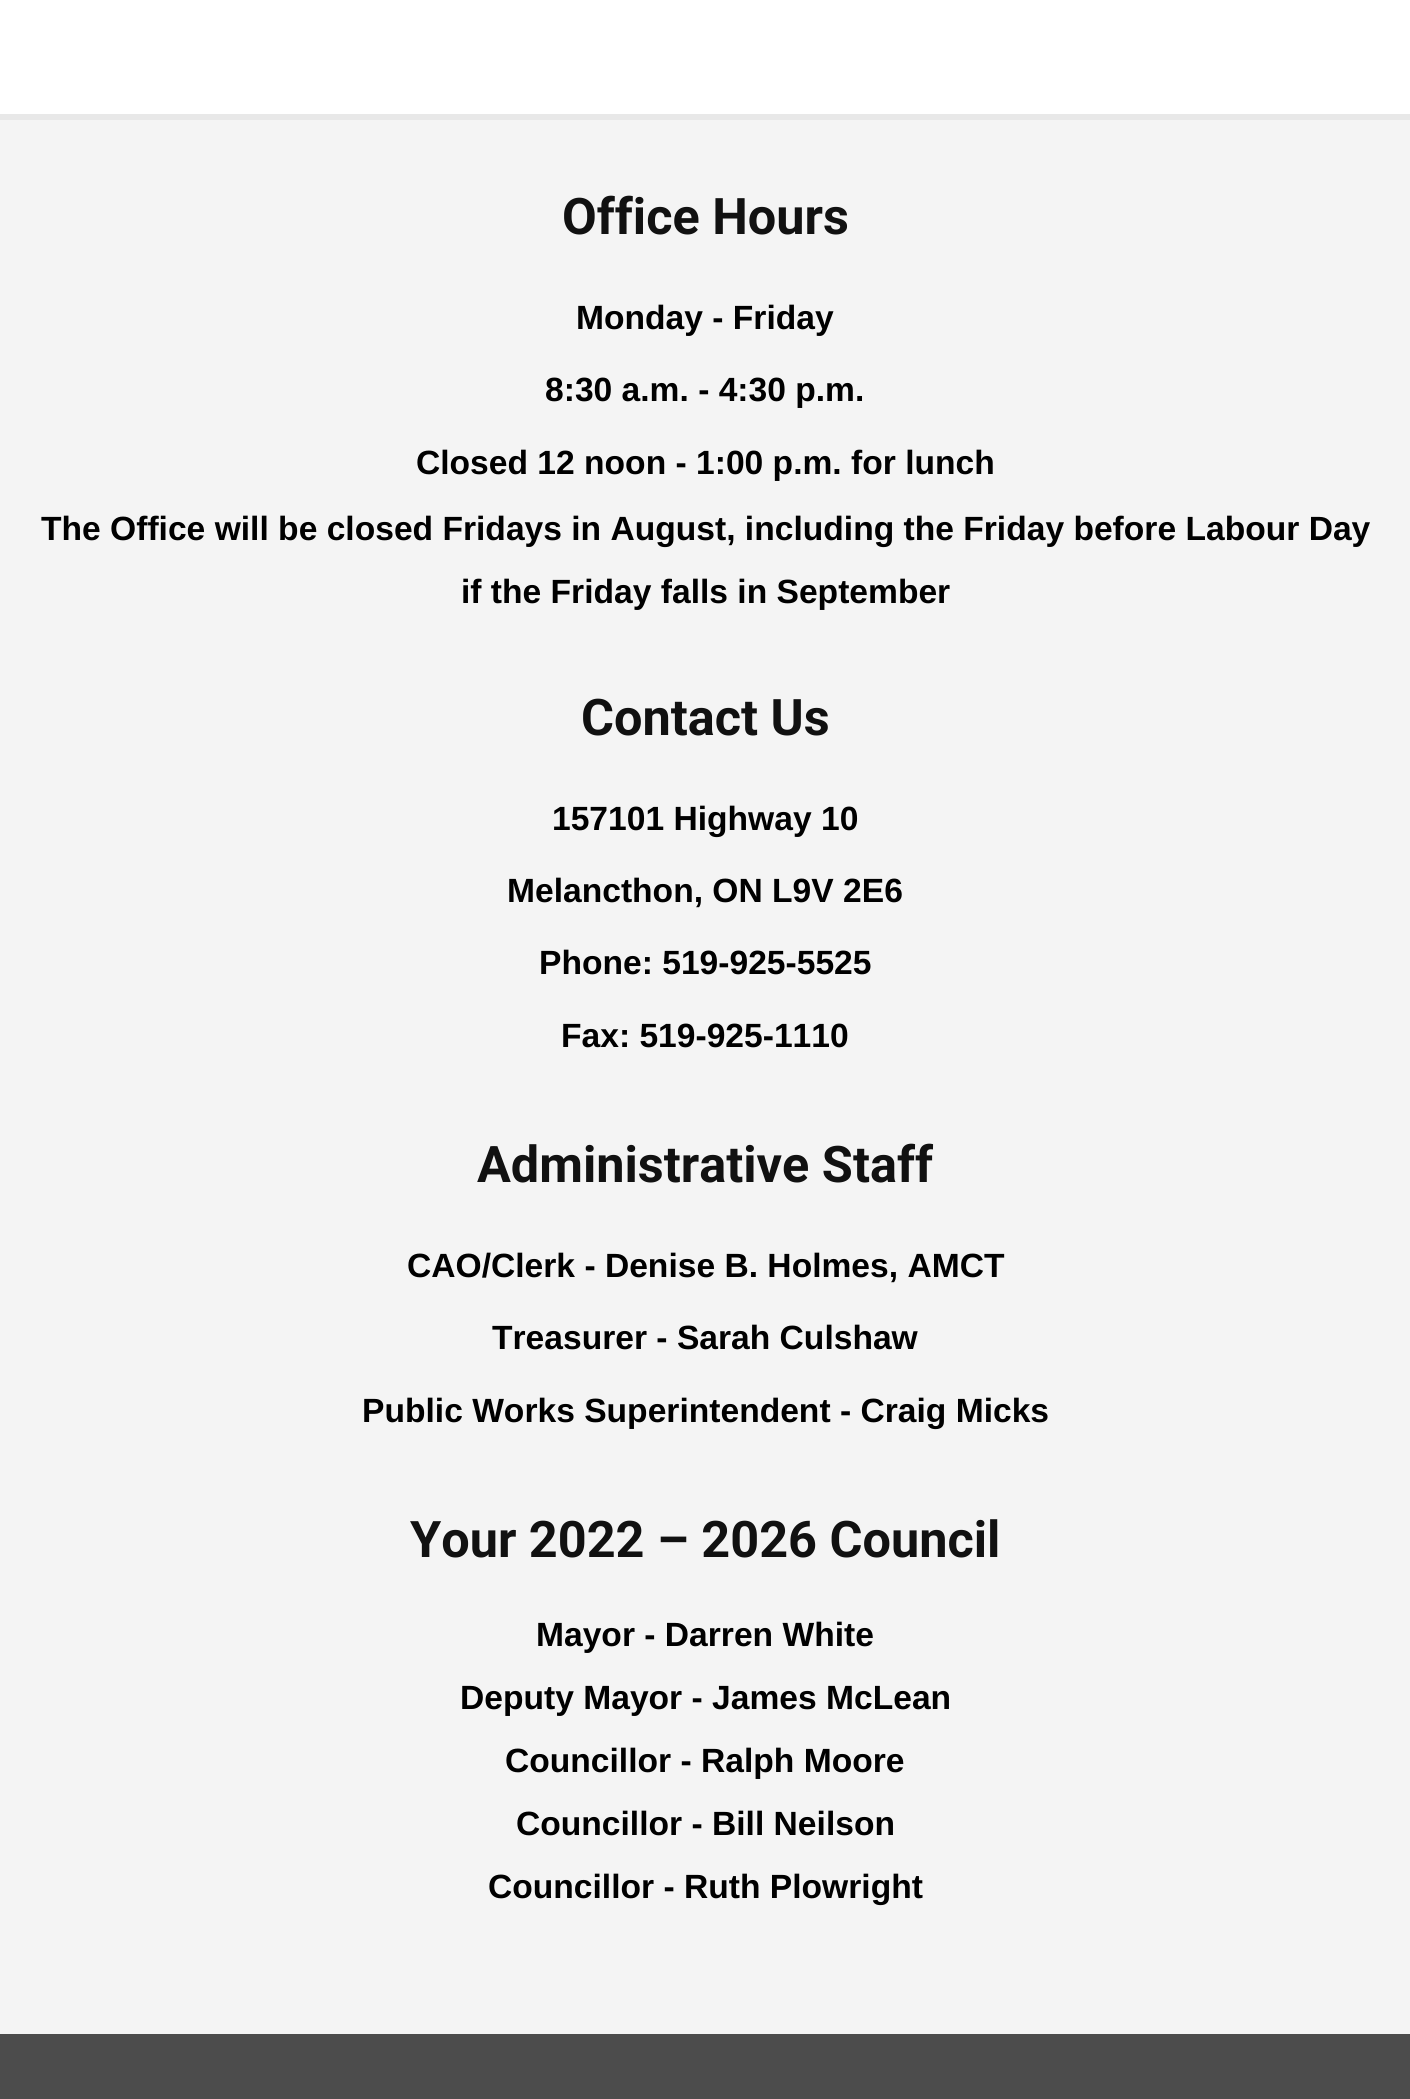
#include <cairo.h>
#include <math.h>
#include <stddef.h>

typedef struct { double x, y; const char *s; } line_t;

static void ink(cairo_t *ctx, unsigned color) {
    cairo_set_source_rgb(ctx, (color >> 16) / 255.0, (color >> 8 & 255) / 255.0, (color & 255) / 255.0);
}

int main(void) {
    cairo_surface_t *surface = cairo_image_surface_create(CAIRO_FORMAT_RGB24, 1410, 2099);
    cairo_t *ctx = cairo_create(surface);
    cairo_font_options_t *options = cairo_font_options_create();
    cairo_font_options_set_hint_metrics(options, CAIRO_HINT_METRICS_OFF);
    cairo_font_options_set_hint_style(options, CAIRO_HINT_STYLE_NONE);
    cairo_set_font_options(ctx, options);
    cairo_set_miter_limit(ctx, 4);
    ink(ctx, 0xFFFFFF);
    cairo_paint(ctx);
    ink(ctx, 0xF4F4F4);
    cairo_rectangle(ctx, 0, 120, 1410, 1914);
    cairo_fill(ctx);
    ink(ctx, 0xE8E8E8);
    cairo_rectangle(ctx, 0, 114, 1410, 6);
    cairo_fill(ctx);
    cairo_select_font_face(ctx, "Roboto", CAIRO_FONT_SLANT_NORMAL, CAIRO_FONT_WEIGHT_BOLD);
    cairo_set_font_size(ctx, 50.4);
    ink(ctx, 0x111111);
    cairo_move_to(ctx, 562, 234);
    cairo_show_text(ctx, "Office Hours");
    cairo_select_font_face(ctx, "Liberation Sans", CAIRO_FONT_SLANT_NORMAL, CAIRO_FONT_WEIGHT_BOLD);
    cairo_set_font_size(ctx, 33.6);
    ink(ctx, 0x000000);
    {
        static const line_t items[] = {
            {576, 329, "Monday - Friday"},
            {545, 401, "8:30 a.m. - 4:30 p.m."},
            {416, 474, "Closed 12 noon - 1:00 p.m. for lunch"},
            {41, 540, "The Office will be closed Fridays in August, including the Friday before Labour Day"},
            {461, 603, "if the Friday falls in September"},
        };
        for (size_t i = 0; i < sizeof items / sizeof *items; i++) {
            cairo_move_to(ctx, items[i].x, items[i].y);
            cairo_show_text(ctx, items[i].s);
        }
    }
    cairo_select_font_face(ctx, "Roboto", CAIRO_FONT_SLANT_NORMAL, CAIRO_FONT_WEIGHT_BOLD);
    cairo_set_font_size(ctx, 50.4);
    ink(ctx, 0x111111);
    cairo_move_to(ctx, 581, 735);
    cairo_show_text(ctx, "Contact Us");
    cairo_select_font_face(ctx, "Liberation Sans", CAIRO_FONT_SLANT_NORMAL, CAIRO_FONT_WEIGHT_BOLD);
    cairo_set_font_size(ctx, 33.6);
    ink(ctx, 0x000000);
    {
        static const line_t items[] = {
            {552, 830, "157101 Highway 10"},
            {507, 902, "Melancthon, ON L9V 2E6"},
            {539, 974, "Phone: 519-925-5525"},
            {561, 1047, "Fax: 519-925-1110"},
        };
        for (size_t i = 0; i < sizeof items / sizeof *items; i++) {
            cairo_move_to(ctx, items[i].x, items[i].y);
            cairo_show_text(ctx, items[i].s);
        }
    }
    cairo_select_font_face(ctx, "Roboto", CAIRO_FONT_SLANT_NORMAL, CAIRO_FONT_WEIGHT_BOLD);
    cairo_set_font_size(ctx, 50.4);
    ink(ctx, 0x111111);
    cairo_move_to(ctx, 477, 1182);
    cairo_show_text(ctx, "Administrative Staff");
    cairo_select_font_face(ctx, "Liberation Sans", CAIRO_FONT_SLANT_NORMAL, CAIRO_FONT_WEIGHT_BOLD);
    cairo_set_font_size(ctx, 33.6);
    ink(ctx, 0x000000);
    {
        static const line_t items[] = {
            {407, 1277, "CAO/Clerk - Denise B. Holmes, AMCT"},
            {492, 1349, "Treasurer - Sarah Culshaw"},
            {362, 1422, "Public Works Superintendent - Craig Micks"},
        };
        for (size_t i = 0; i < sizeof items / sizeof *items; i++) {
            cairo_move_to(ctx, items[i].x, items[i].y);
            cairo_show_text(ctx, items[i].s);
        }
    }
    cairo_select_font_face(ctx, "Roboto", CAIRO_FONT_SLANT_NORMAL, CAIRO_FONT_WEIGHT_BOLD);
    cairo_set_font_size(ctx, 50.4);
    ink(ctx, 0x111111);
    cairo_move_to(ctx, 410, 1557);
    cairo_show_text(ctx, "Your 2022 – 2026 Council");
    cairo_select_font_face(ctx, "Liberation Sans", CAIRO_FONT_SLANT_NORMAL, CAIRO_FONT_WEIGHT_BOLD);
    cairo_set_font_size(ctx, 33.6);
    ink(ctx, 0x000000);
    {
        static const line_t items[] = {
            {536, 1646, "Mayor - Darren White"},
            {460, 1709, "Deputy Mayor - James McLean"},
            {505, 1772, "Councillor - Ralph Moore"},
            {516, 1835, "Councillor - Bill Neilson"},
            {488, 1898, "Councillor - Ruth Plowright"},
        };
        for (size_t i = 0; i < sizeof items / sizeof *items; i++) {
            cairo_move_to(ctx, items[i].x, items[i].y);
            cairo_show_text(ctx, items[i].s);
        }
    }
    ink(ctx, 0x4C4C4C);
    cairo_rectangle(ctx, 0, 2034, 1410, 65);
    cairo_fill(ctx);
    cairo_surface_write_to_png(surface, "image.png");
    cairo_font_options_destroy(options);
    cairo_destroy(ctx);
    cairo_surface_destroy(surface);
    return 0;
}
